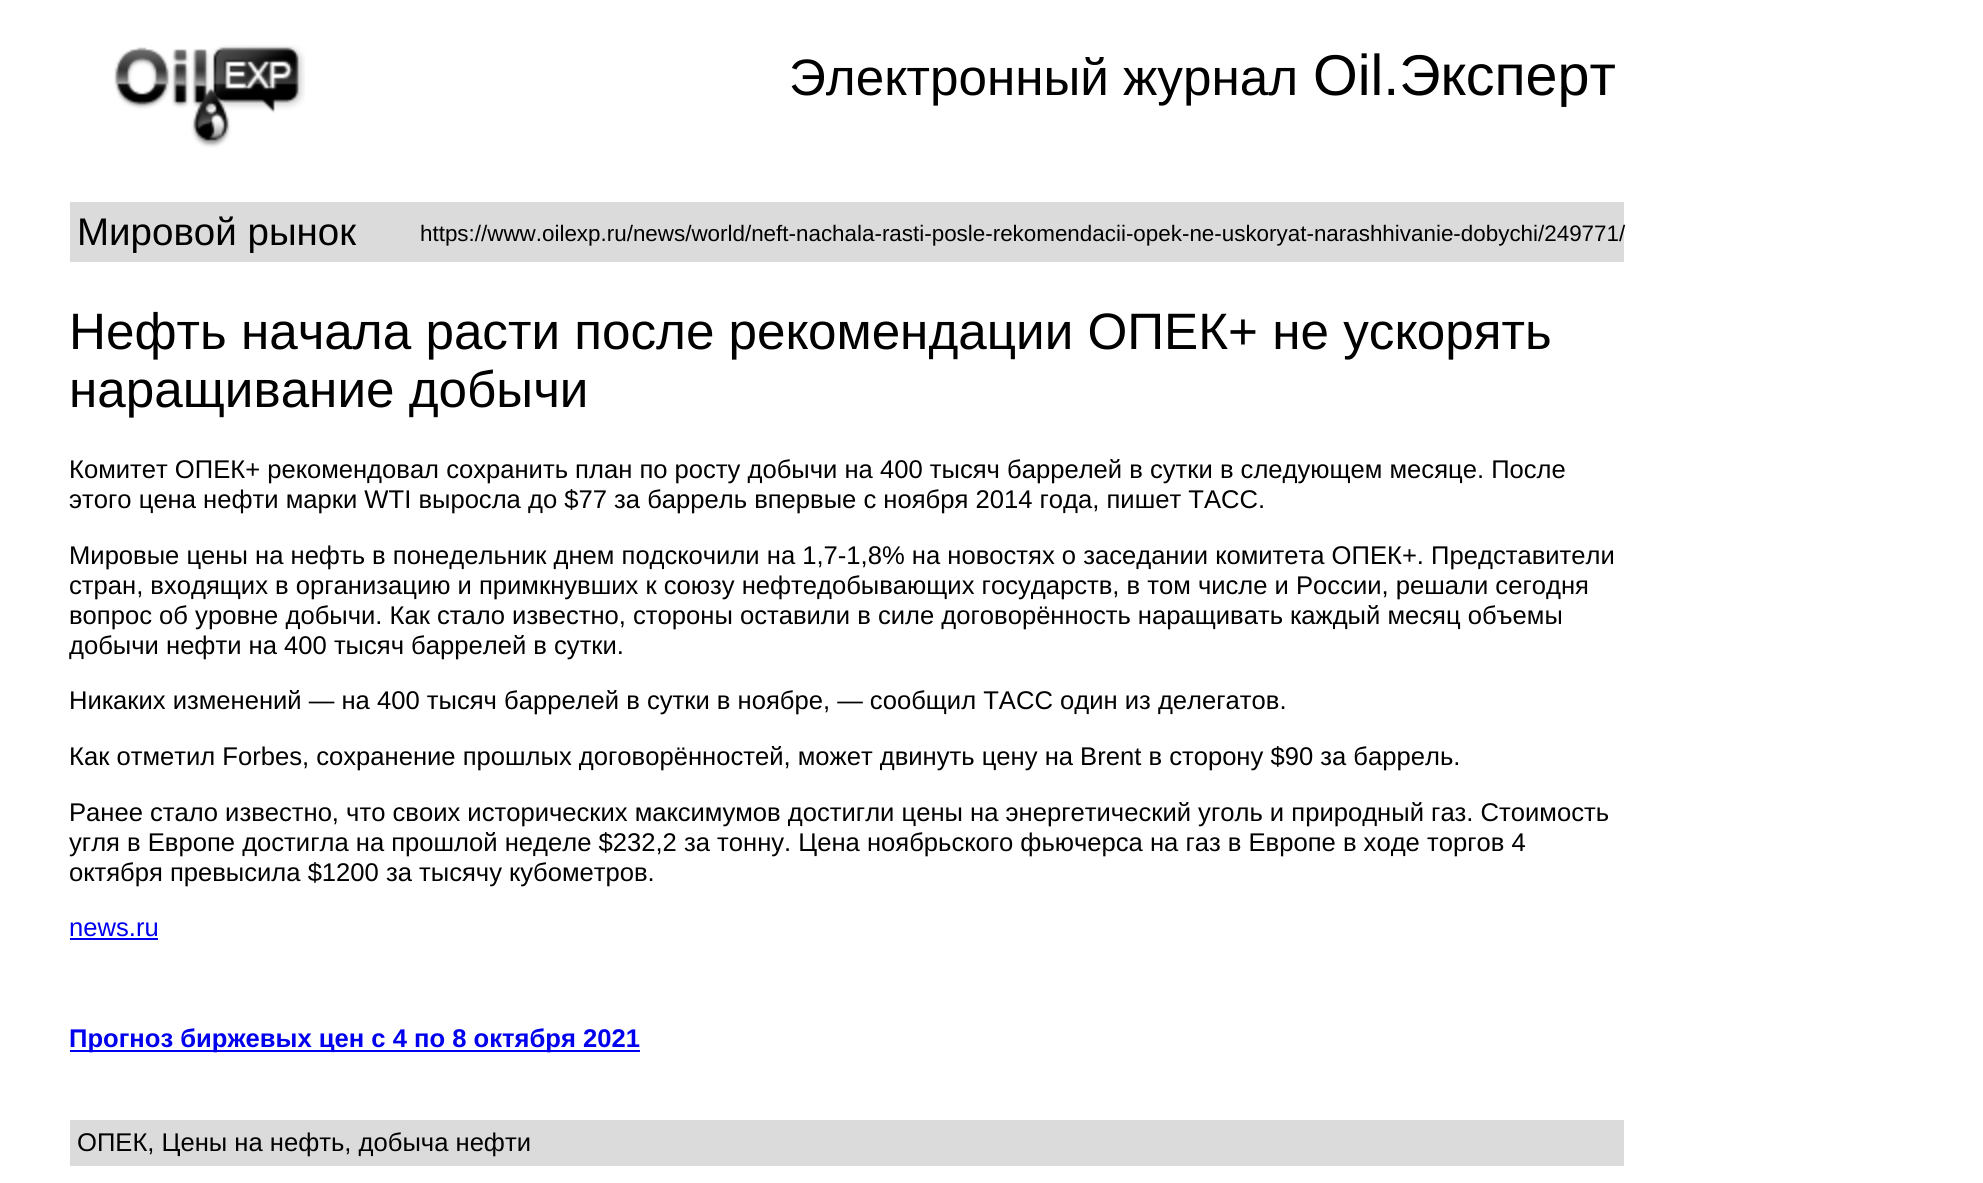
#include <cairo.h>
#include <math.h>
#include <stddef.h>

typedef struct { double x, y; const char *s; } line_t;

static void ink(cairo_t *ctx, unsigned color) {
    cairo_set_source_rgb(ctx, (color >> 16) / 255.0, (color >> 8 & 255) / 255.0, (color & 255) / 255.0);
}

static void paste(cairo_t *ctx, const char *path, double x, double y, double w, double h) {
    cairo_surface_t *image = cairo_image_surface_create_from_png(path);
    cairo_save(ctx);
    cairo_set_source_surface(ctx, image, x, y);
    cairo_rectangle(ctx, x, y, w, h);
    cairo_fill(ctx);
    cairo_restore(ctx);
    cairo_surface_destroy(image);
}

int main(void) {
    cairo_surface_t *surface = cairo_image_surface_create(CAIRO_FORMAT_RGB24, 1983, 1183);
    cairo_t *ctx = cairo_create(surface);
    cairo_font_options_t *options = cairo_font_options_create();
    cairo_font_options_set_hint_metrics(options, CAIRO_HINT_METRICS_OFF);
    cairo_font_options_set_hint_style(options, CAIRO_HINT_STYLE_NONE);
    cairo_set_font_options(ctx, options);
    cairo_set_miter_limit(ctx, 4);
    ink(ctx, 0xFFFFFF);
    cairo_paint(ctx);
    paste(ctx, "media/1.png", 114, 45, 191, 103);
    cairo_select_font_face(ctx, "Liberation Sans", CAIRO_FONT_SLANT_NORMAL, CAIRO_FONT_WEIGHT_NORMAL);
    cairo_set_font_size(ctx, 51.2);
    ink(ctx, 0x000000);
    cairo_move_to(ctx, 789, 95);
    cairo_show_text(ctx, "Электронный журнал");
    cairo_set_font_size(ctx, 57.5);
    cairo_move_to(ctx, 1313, 95);
    cairo_show_text(ctx, "Oil.Эксперт");
    ink(ctx, 0xDADBDA);
    cairo_rectangle(ctx, 70, 202, 1554, 60);
    cairo_fill(ctx);
    cairo_set_font_size(ctx, 38.5);
    ink(ctx, 0x000000);
    cairo_move_to(ctx, 77, 245);
    cairo_show_text(ctx, "Мировой рынок");
    cairo_set_font_size(ctx, 22.4);
    cairo_move_to(ctx, 420, 241);
    cairo_show_text(ctx, "https://www.oilexp.ru/news/world/neft-nachala-rasti-posle-rekomendacii-opek-ne-uskoryat-narashhivanie-dobychi/249771/");
    cairo_set_font_size(ctx, 51.2);
    cairo_move_to(ctx, 69, 349);
    cairo_show_text(ctx, "Нефть начала расти после рекомендации ОПЕК+ не ускорять");
    cairo_move_to(ctx, 69, 407);
    cairo_show_text(ctx, "наращивание добычи");
    cairo_set_font_size(ctx, 25.6);
    {
        static const line_t items[] = {
            {69, 478, "Комитет ОПЕК+ рекомендовал сохранить план по росту добычи на 400 тысяч баррелей в сутки в следующем месяце. После"},
            {69, 508, "этого цена нефти марки WTI выросла до $77 за баррель впервые с ноября 2014 года, пишет ТАСС."},
            {69, 564, "Мировые цены на нефть в понедельник днем подскочили на 1,7-1,8% на новостях о заседании комитета ОПЕК+. Представители"},
            {69, 594, "стран, входящих в организацию и примкнувших к союзу нефтедобывающих государств, в том числе и России, решали сегодня"},
            {69, 624, "вопрос об уровне добычи. Как стало известно, стороны оставили в силе договорённость наращивать каждый месяц объемы"},
            {69, 654, "добычи нефти на 400 тысяч баррелей в сутки."},
            {69, 709, "Никаких изменений — на 400 тысяч баррелей в сутки в ноябре, — сообщил ТАСС один из делегатов."},
            {69, 765, "Как отметил Forbes, сохранение прошлых договорённостей, может двинуть цену на Brent в сторону $90 за баррель."},
            {69, 821, "Ранее стало известно, что своих исторических максимумов достигли цены на энергетический уголь и природный газ. Стоимость"},
            {69, 851, "угля в Европе достигла на прошлой неделе $232,2 за тонну. Цена ноябрьского фьючерса на газ в Европе в ходе торгов 4"},
            {69, 881, "октября превысила $1200 за тысячу кубометров."},
        };
        for (size_t i = 0; i < sizeof items / sizeof *items; i++) {
            cairo_move_to(ctx, items[i].x, items[i].y);
            cairo_show_text(ctx, items[i].s);
        }
    }
    ink(ctx, 0x0000EE);
    cairo_move_to(ctx, 69, 936);
    cairo_show_text(ctx, "news.ru");
    cairo_rectangle(ctx, 70, 938, 88, 2);
    cairo_fill(ctx);
    cairo_rectangle(ctx, 70, 1050, 570, 2);
    cairo_fill(ctx);
    cairo_select_font_face(ctx, "Liberation Sans", CAIRO_FONT_SLANT_NORMAL, CAIRO_FONT_WEIGHT_BOLD);
    cairo_move_to(ctx, 69, 1047);
    cairo_show_text(ctx, "Прогноз биржевых цен с 4 по 8 октября 2021");
    ink(ctx, 0xDADBDA);
    cairo_rectangle(ctx, 70, 1120, 1554, 46);
    cairo_fill(ctx);
    cairo_select_font_face(ctx, "Liberation Sans", CAIRO_FONT_SLANT_NORMAL, CAIRO_FONT_WEIGHT_NORMAL);
    ink(ctx, 0x000000);
    cairo_move_to(ctx, 77, 1151);
    cairo_show_text(ctx, "ОПЕК, Цены на нефть, добыча нефти");
    cairo_surface_write_to_png(surface, "image.png");
    cairo_font_options_destroy(options);
    cairo_destroy(ctx);
    cairo_surface_destroy(surface);
    return 0;
}
